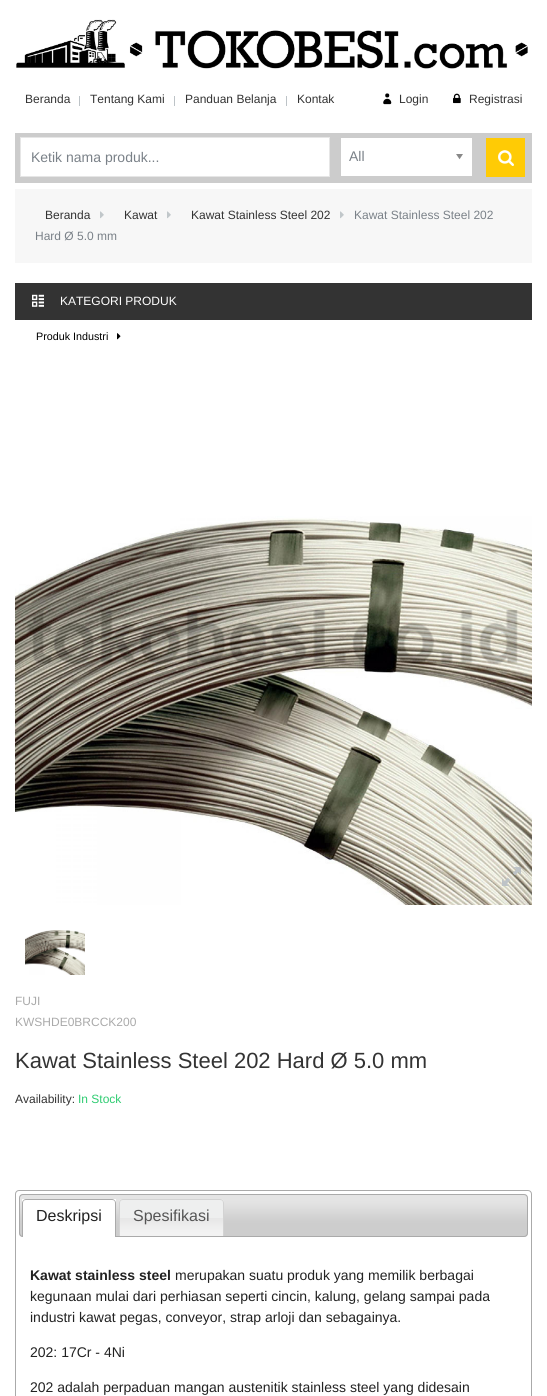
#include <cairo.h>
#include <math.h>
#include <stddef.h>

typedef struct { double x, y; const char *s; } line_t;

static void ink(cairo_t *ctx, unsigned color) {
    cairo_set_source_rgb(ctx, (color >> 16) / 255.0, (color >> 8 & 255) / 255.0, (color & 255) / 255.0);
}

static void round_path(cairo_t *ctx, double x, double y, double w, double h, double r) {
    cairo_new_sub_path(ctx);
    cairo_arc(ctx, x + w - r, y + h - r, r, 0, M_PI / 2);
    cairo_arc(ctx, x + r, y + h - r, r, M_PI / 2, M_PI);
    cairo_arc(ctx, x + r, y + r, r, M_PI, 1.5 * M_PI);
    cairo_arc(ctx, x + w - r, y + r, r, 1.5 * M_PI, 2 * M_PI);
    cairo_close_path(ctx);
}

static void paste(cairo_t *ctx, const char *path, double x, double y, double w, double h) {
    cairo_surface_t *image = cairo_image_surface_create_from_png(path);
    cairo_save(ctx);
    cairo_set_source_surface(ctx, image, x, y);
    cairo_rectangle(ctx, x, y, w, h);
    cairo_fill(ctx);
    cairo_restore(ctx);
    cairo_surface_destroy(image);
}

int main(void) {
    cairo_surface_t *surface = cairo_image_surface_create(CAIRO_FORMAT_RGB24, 547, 1396);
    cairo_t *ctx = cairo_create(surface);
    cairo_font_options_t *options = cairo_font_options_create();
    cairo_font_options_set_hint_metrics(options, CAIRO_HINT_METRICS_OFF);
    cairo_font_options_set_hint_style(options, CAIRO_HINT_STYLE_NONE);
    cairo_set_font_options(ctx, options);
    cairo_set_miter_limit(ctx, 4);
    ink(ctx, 0xFFFFFF);
    cairo_paint(ctx);
    paste(ctx, "media/1.png", 16, 19, 512, 50);
    cairo_select_font_face(ctx, "Liberation Sans", CAIRO_FONT_SLANT_NORMAL, CAIRO_FONT_WEIGHT_NORMAL);
    cairo_set_font_size(ctx, 12);
    ink(ctx, 0x333333);
    cairo_move_to(ctx, 25, 103);
    cairo_show_text(ctx, "Beranda");
    ink(ctx, 0xBDC3C7);
    cairo_rectangle(ctx, 79, 96, 1, 10);
    cairo_fill(ctx);
    ink(ctx, 0x333333);
    cairo_move_to(ctx, 90, 103);
    cairo_show_text(ctx, "Tentang Kami");
    ink(ctx, 0xBDC3C7);
    cairo_rectangle(ctx, 174, 96, 1, 10);
    cairo_fill(ctx);
    ink(ctx, 0x333333);
    cairo_move_to(ctx, 185, 103);
    cairo_show_text(ctx, "Panduan Belanja");
    ink(ctx, 0xBDC3C7);
    cairo_rectangle(ctx, 286, 96, 1, 10);
    cairo_fill(ctx);
    ink(ctx, 0x333333);
    cairo_move_to(ctx, 297, 103);
    cairo_show_text(ctx, "Kontak");
    paste(ctx, "media/2.png", 383, 93, 9, 12);
    cairo_move_to(ctx, 399, 103);
    cairo_show_text(ctx, "Login");
    paste(ctx, "media/3.png", 453, 93, 8, 11);
    cairo_move_to(ctx, 469, 103);
    cairo_show_text(ctx, "Registrasi");
    ink(ctx, 0xCCCCCC);
    cairo_rectangle(ctx, 15, 133, 517, 50);
    cairo_fill(ctx);
    ink(ctx, 0xFFFFFF);
    cairo_rectangle(ctx, 20.5, 137.5, 309, 39);
    cairo_fill_preserve(ctx);
    ink(ctx, 0xE6E6E6);
    cairo_set_line_width(ctx, 1);
    cairo_stroke(ctx);
    cairo_set_font_size(ctx, 14);
    ink(ctx, 0x7A8188);
    cairo_move_to(ctx, 31, 162);
    cairo_show_text(ctx, "Ketik nama produk...");
    ink(ctx, 0xFFFFFF);
    cairo_rectangle(ctx, 341, 138, 131, 38);
    cairo_fill(ctx);
    ink(ctx, 0x7A8188);
    cairo_move_to(ctx, 349, 161);
    cairo_show_text(ctx, "All");
    paste(ctx, "media/4.png", 456, 154, 7, 6);
    ink(ctx, 0xFFCB05);
    cairo_rectangle(ctx, 486, 138, 39, 39);
    cairo_fill(ctx);
    paste(ctx, "media/5.png", 498, 150, 16, 16);
    ink(ctx, 0xF7F7F7);
    cairo_rectangle(ctx, 15, 189, 517, 74);
    cairo_fill(ctx);
    cairo_set_font_size(ctx, 12);
    ink(ctx, 0x333333);
    cairo_move_to(ctx, 45, 219);
    cairo_show_text(ctx, "Beranda");
    paste(ctx, "media/6.png", 100, 211, 4, 8);
    cairo_move_to(ctx, 124, 219);
    cairo_show_text(ctx, "Kawat");
    paste(ctx, "media/6.png", 167, 211, 4, 8);
    cairo_move_to(ctx, 191, 219);
    cairo_show_text(ctx, "Kawat Stainless Steel 202");
    paste(ctx, "media/6.png", 340, 211, 4, 8);
    ink(ctx, 0x7A8188);
    cairo_move_to(ctx, 354, 219);
    cairo_show_text(ctx, "Kawat Stainless Steel 202");
    cairo_move_to(ctx, 35, 240);
    cairo_show_text(ctx, "Hard Ø 5.0 mm");
    ink(ctx, 0x333333);
    cairo_rectangle(ctx, 15, 283, 517, 37);
    cairo_fill(ctx);
    paste(ctx, "media/7.png", 32, 294, 12, 13);
    ink(ctx, 0xFFFFFF);
    cairo_move_to(ctx, 60, 305);
    cairo_show_text(ctx, "KATEGORI PRODUK");
    cairo_set_font_size(ctx, 10.75);
    ink(ctx, 0x000000);
    cairo_move_to(ctx, 36, 340);
    cairo_show_text(ctx, "Produk Industri");
    paste(ctx, "media/8.png", 117, 333, 4, 7);
    paste(ctx, "media/9.png", 15, 516, 517, 389);
    paste(ctx, "media/10.png", 502, 867, 19, 19);
    paste(ctx, "media/11.png", 25, 930, 60, 45);
    cairo_set_font_size(ctx, 12);
    ink(ctx, 0xAAAAAA);
    cairo_move_to(ctx, 15, 1005);
    cairo_show_text(ctx, "FUJI");
    cairo_move_to(ctx, 15, 1026);
    cairo_show_text(ctx, "KWSHDE0BRCCK200");
    cairo_set_font_size(ctx, 22);
    ink(ctx, 0x333333);
    cairo_move_to(ctx, 15, 1068);
    cairo_show_text(ctx, "Kawat Stainless Steel 202 Hard Ø 5.0 mm");
    cairo_set_font_size(ctx, 12);
    cairo_move_to(ctx, 15, 1103);
    cairo_show_text(ctx, "Availability:");
    ink(ctx, 0x2ECC71);
    cairo_move_to(ctx, 78, 1103);
    cairo_show_text(ctx, "In Stock");
    round_path(ctx, 15.5, 1190.5, 516, 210, 3.5);
    ink(ctx, 0xAAAAAA);
    cairo_stroke(ctx);
    paste(ctx, "media/12.png", 19, 1194, 509, 43);
    round_path(ctx, 19.5, 1194.5, 508, 42, 3.5);
    cairo_stroke(ctx);
    ink(ctx, 0xFFFFFF);
    cairo_rectangle(ctx, 22, 1199, 94, 38);
    cairo_fill(ctx);
    ink(ctx, 0xAAAAAA);
    cairo_set_fill_rule(ctx, CAIRO_FILL_RULE_EVEN_ODD);
    cairo_new_path(ctx);
    cairo_move_to(ctx, 26, 1199);
    cairo_line_to(ctx, 112, 1199);
    cairo_curve_to(ctx, 114, 1199, 116, 1201, 116, 1203);
    cairo_line_to(ctx, 116, 1237);
    cairo_line_to(ctx, 22, 1237);
    cairo_line_to(ctx, 22, 1203);
    cairo_curve_to(ctx, 22, 1201, 24, 1199, 26, 1199);
    cairo_close_path(ctx);
    cairo_move_to(ctx, 26, 1200);
    cairo_line_to(ctx, 112, 1200);
    cairo_curve_to(ctx, 114, 1200, 115, 1201, 115, 1203);
    cairo_line_to(ctx, 115, 1237);
    cairo_line_to(ctx, 23, 1237);
    cairo_line_to(ctx, 23, 1203);
    cairo_curve_to(ctx, 23, 1201, 24, 1200, 26, 1200);
    cairo_close_path(ctx);
    cairo_fill(ctx);
    cairo_set_font_size(ctx, 16);
    ink(ctx, 0x222222);
    cairo_move_to(ctx, 36, 1221);
    cairo_show_text(ctx, "Deskripsi");
    paste(ctx, "media/13.png", 119, 1199, 105, 37);
    ink(ctx, 0xD3D3D3);
    cairo_new_path(ctx);
    cairo_move_to(ctx, 123, 1199);
    cairo_line_to(ctx, 220, 1199);
    cairo_curve_to(ctx, 222, 1199, 224, 1201, 224, 1203);
    cairo_line_to(ctx, 224, 1236);
    cairo_line_to(ctx, 119, 1236);
    cairo_line_to(ctx, 119, 1203);
    cairo_curve_to(ctx, 119, 1201, 121, 1199, 123, 1199);
    cairo_close_path(ctx);
    cairo_move_to(ctx, 123, 1200);
    cairo_line_to(ctx, 220, 1200);
    cairo_curve_to(ctx, 222, 1200, 223, 1201, 223, 1203);
    cairo_line_to(ctx, 223, 1236);
    cairo_line_to(ctx, 120, 1236);
    cairo_line_to(ctx, 120, 1203);
    cairo_curve_to(ctx, 120, 1201, 121, 1200, 123, 1200);
    cairo_close_path(ctx);
    cairo_fill(ctx);
    ink(ctx, 0x555555);
    cairo_move_to(ctx, 133, 1221);
    cairo_show_text(ctx, "Spesifikasi");
    cairo_select_font_face(ctx, "Liberation Sans", CAIRO_FONT_SLANT_NORMAL, CAIRO_FONT_WEIGHT_BOLD);
    cairo_set_font_size(ctx, 14);
    ink(ctx, 0x222222);
    cairo_move_to(ctx, 30, 1280);
    cairo_show_text(ctx, "Kawat stainless steel");
    cairo_select_font_face(ctx, "Liberation Sans", CAIRO_FONT_SLANT_NORMAL, CAIRO_FONT_WEIGHT_NORMAL);
    {
        static const line_t items[] = {
            {175, 1280, "merupakan suatu produk yang memilik berbagai"},
            {30, 1301, "kegunaan mulai dari perhiasan seperti cincin, kalung, gelang sampai pada"},
            {30, 1322, "industri kawat pegas, conveyor, strap arloji dan sebagainya."},
            {30, 1357, "202: 17Cr - 4Ni"},
            {30, 1392, "202 adalah perpaduan mangan austenitik stainless steel yang didesain"},
        };
        for (size_t i = 0; i < sizeof items / sizeof *items; i++) {
            cairo_move_to(ctx, items[i].x, items[i].y);
            cairo_show_text(ctx, items[i].s);
        }
    }
    cairo_surface_write_to_png(surface, "image.png");
    cairo_font_options_destroy(options);
    cairo_destroy(ctx);
    cairo_surface_destroy(surface);
    return 0;
}
